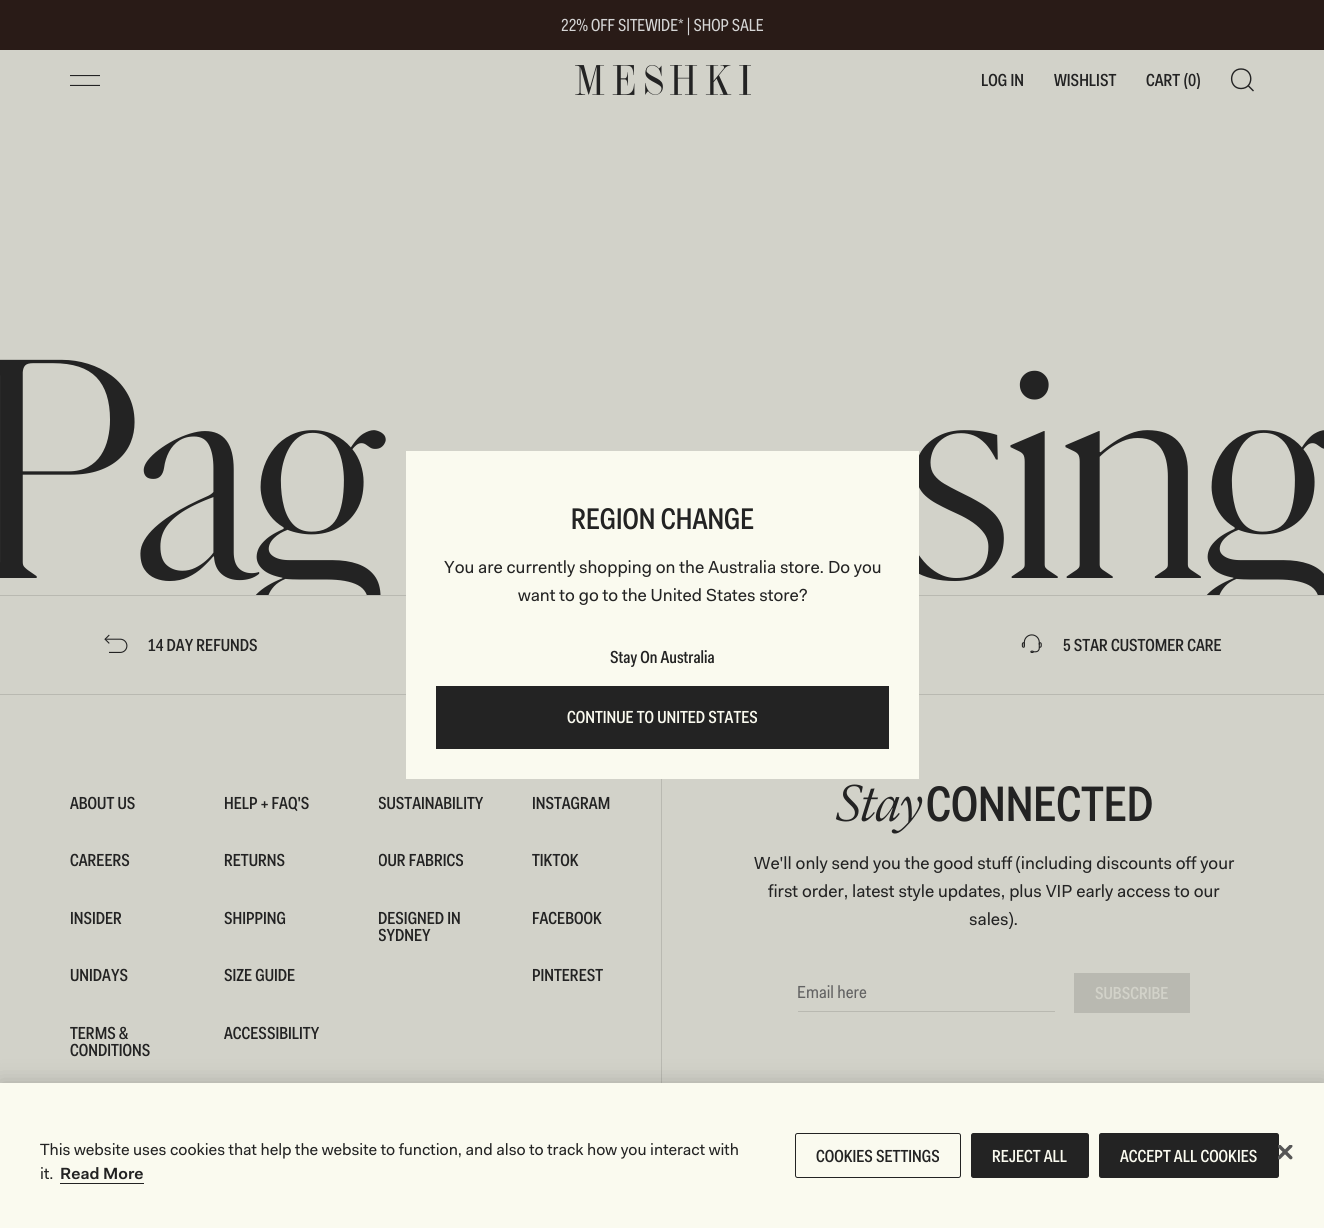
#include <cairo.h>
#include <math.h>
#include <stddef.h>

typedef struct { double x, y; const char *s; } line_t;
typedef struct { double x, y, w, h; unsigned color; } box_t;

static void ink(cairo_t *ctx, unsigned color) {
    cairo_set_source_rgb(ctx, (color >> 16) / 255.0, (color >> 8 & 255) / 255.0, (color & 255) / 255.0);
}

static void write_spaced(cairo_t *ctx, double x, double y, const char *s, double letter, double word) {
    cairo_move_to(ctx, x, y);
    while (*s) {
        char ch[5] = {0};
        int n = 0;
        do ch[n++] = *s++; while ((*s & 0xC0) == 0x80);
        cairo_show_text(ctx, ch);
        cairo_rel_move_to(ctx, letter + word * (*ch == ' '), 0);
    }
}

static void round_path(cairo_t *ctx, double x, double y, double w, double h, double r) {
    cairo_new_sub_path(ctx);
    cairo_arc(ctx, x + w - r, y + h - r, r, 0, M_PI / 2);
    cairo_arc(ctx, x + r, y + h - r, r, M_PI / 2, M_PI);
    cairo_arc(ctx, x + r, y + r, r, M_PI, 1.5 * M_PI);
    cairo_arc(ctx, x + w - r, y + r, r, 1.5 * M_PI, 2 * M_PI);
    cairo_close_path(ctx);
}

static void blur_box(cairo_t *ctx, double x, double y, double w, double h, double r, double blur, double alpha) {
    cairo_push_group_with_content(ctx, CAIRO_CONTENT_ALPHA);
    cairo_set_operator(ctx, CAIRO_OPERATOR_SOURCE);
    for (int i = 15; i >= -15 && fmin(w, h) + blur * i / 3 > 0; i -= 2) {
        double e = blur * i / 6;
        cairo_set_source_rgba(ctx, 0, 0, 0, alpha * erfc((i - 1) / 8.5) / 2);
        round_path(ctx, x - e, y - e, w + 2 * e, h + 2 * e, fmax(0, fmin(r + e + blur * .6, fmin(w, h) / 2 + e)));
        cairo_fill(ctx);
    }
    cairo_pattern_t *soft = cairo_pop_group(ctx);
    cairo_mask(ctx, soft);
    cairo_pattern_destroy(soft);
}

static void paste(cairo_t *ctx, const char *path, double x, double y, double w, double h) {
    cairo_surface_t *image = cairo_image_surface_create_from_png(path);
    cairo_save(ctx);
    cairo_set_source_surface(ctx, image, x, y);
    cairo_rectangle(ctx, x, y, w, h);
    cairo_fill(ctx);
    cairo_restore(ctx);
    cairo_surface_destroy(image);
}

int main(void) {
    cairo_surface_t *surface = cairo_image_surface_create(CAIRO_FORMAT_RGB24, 1324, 1228);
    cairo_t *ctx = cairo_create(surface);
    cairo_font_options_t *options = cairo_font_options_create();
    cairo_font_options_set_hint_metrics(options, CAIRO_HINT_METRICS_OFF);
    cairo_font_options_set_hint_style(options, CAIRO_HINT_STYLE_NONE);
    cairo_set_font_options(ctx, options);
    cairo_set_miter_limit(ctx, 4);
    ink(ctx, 0xD2D2C9);
    cairo_paint(ctx);
    ink(ctx, 0x291B17);
    cairo_rectangle(ctx, 0, 0, 1324, 50);
    cairo_fill(ctx);
    cairo_select_font_face(ctx, "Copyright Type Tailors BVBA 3", CAIRO_FONT_SLANT_NORMAL, CAIRO_FONT_WEIGHT_NORMAL);
    cairo_set_font_size(ctx, 17.5);
    ink(ctx, 0xD5D5D5);
    cairo_move_to(ctx, 561, 31);
    cairo_show_text(ctx, "22% OFF SITEWIDE* | SHOP SALE");
    cairo_save(ctx);
    cairo_rectangle(ctx, 70, 75, 30, 11);
    cairo_clip(ctx);
    cairo_new_path(ctx);
    cairo_move_to(ctx, 70, 75.5);
    cairo_line_to(ctx, 100, 75.5);
    cairo_move_to(ctx, 70, 85.5);
    cairo_line_to(ctx, 100, 85.5);
    ink(ctx, 0x232323);
    cairo_set_line_width(ctx, 1.2);
    cairo_stroke(ctx);
    cairo_restore(ctx);
    paste(ctx, "media/1.png", 575, 65, 176, 30);
    cairo_select_font_face(ctx, "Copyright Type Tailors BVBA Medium", CAIRO_FONT_SLANT_NORMAL, CAIRO_FONT_WEIGHT_NORMAL);
    ink(ctx, 0x232323);
    {
        static const line_t items[] = {
            {981, 86, "LOG IN"},
            {1054, 86, "WISHLIST"},
            {1146, 86, "CART"},
        };
        for (size_t i = 0; i < sizeof items / sizeof *items; i++) {
            cairo_move_to(ctx, items[i].x, items[i].y);
            cairo_show_text(ctx, items[i].s);
        }
    }
    cairo_save(ctx);
    cairo_rectangle(ctx, 1146, 71, 54, 18);
    cairo_clip(ctx);
    cairo_move_to(ctx, 1184, 86);
    cairo_show_text(ctx, "(0)");
    cairo_restore(ctx);
    cairo_new_path(ctx);
    cairo_move_to(ctx, 1241, 88.5);
    cairo_curve_to(ctx, 1254, 88.5, 1254, 69, 1241, 69);
    cairo_curve_to(ctx, 1228.5, 69, 1228.5, 88.5, 1241, 88.5);
    cairo_close_path(ctx);
    cairo_move_to(ctx, 1248, 85.5);
    cairo_line_to(ctx, 1253.5, 91);
    cairo_set_line_width(ctx, 1.4);
    cairo_stroke(ctx);
    cairo_select_font_face(ctx, "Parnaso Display", CAIRO_FONT_SLANT_NORMAL, CAIRO_FONT_WEIGHT_NORMAL);
    cairo_set_font_size(ctx, 303);
    write_spaced(ctx, -33, 578, "Pa", -23, 0);
    cairo_save(ctx);
    cairo_rectangle(ctx, 0, 345, 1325, 250);
    cairo_clip(ctx);
    write_spaced(ctx, 243, 578, "g", -23, 0);
    cairo_restore(ctx);
    write_spaced(ctx, 899, 578, "sin", -23, 0);
    cairo_save(ctx);
    cairo_rectangle(ctx, 0, 345, 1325, 250);
    cairo_clip(ctx);
    write_spaced(ctx, 1194, 578, "g", -23, 0);
    cairo_restore(ctx);
    {
        static const box_t items[] = {
            {0, 595, 1324, 1, 0xB9B9B1},
            {0, 694, 1324, 1, 0xB9B9B1},
            {406, 451, 513, 328, 0xFAFAEF},
        };
        for (size_t i = 0; i < sizeof items / sizeof *items; i++) {
            ink(ctx, items[i].color);
            cairo_rectangle(ctx, items[i].x, items[i].y, items[i].w, items[i].h);
            cairo_fill(ctx);
        }
    }
    cairo_select_font_face(ctx, "Copyright Type Tailors BVBA Medium", CAIRO_FONT_SLANT_NORMAL, CAIRO_FONT_WEIGHT_NORMAL);
    cairo_set_font_size(ctx, 30);
    ink(ctx, 0x232323);
    cairo_move_to(ctx, 571, 529);
    cairo_show_text(ctx, "REGION CHANGE");
    cairo_select_font_face(ctx, "Copyright Type Tailors BVBA", CAIRO_FONT_SLANT_NORMAL, CAIRO_FONT_WEIGHT_NORMAL);
    cairo_set_font_size(ctx, 17.5);
    cairo_move_to(ctx, 444, 573);
    cairo_show_text(ctx, "You are currently shopping on the Australia store. Do you");
    cairo_move_to(ctx, 518, 601);
    cairo_show_text(ctx, "want to go to the United States store?");
    cairo_select_font_face(ctx, "Copyright Type Tailors BVBA Medium", CAIRO_FONT_SLANT_NORMAL, CAIRO_FONT_WEIGHT_NORMAL);
    cairo_move_to(ctx, 610, 663);
    cairo_show_text(ctx, "Stay On Australia");
    cairo_rectangle(ctx, 436, 686, 453, 63);
    cairo_fill(ctx);
    ink(ctx, 0xFAFAEF);
    cairo_move_to(ctx, 567, 723);
    cairo_show_text(ctx, "CONTINUE TO UNITED STATES");
    paste(ctx, "media/2.png", 104, 634, 24, 19);
    ink(ctx, 0x232323);
    cairo_move_to(ctx, 148, 651);
    cairo_show_text(ctx, "14 DAY REFUNDS");
    paste(ctx, "media/3.png", 1021, 634, 21, 19);
    cairo_move_to(ctx, 1063, 651);
    cairo_show_text(ctx, "5 STAR CUSTOMER CARE");
    ink(ctx, 0xB9B9B1);
    cairo_rectangle(ctx, 661, 779, 1, 304);
    cairo_fill(ctx);
    ink(ctx, 0x232323);
    {
        static const line_t items[] = {
            {70, 809, "ABOUT US"},
            {70, 866, "CAREERS"},
            {70, 924, "INSIDER"},
            {70, 981, "UNIDAYS"},
            {70, 1039, "TERMS &"},
            {70, 1056, "CONDITIONS"},
            {224, 809, "HELP + FAQ'S"},
            {224, 866, "RETURNS"},
            {224, 924, "SHIPPING"},
            {224, 981, "SIZE GUIDE"},
            {224, 1039, "ACCESSIBILITY"},
        };
        for (size_t i = 0; i < sizeof items / sizeof *items; i++) {
            cairo_move_to(ctx, items[i].x, items[i].y);
            cairo_show_text(ctx, items[i].s);
        }
    }
    cairo_save(ctx);
    cairo_rectangle(ctx, 379, 794, 105, 17);
    cairo_clip(ctx);
    cairo_move_to(ctx, 378, 809);
    cairo_show_text(ctx, "SUSTAINABILITY");
    cairo_restore(ctx);
    cairo_save(ctx);
    cairo_rectangle(ctx, 379, 851, 85, 18);
    cairo_clip(ctx);
    cairo_move_to(ctx, 378, 866);
    cairo_show_text(ctx, "OUR FABRICS");
    cairo_restore(ctx);
    cairo_move_to(ctx, 378, 924);
    cairo_show_text(ctx, "DESIGNED IN");
    cairo_save(ctx);
    cairo_rectangle(ctx, 379, 909, 129, 35);
    cairo_clip(ctx);
    cairo_move_to(ctx, 378, 941);
    cairo_show_text(ctx, "SYDNEY");
    cairo_restore(ctx);
    {
        static const line_t items[] = {
            {532, 809, "INSTAGRAM"},
            {532, 866, "TIKTOK"},
            {532, 924, "FACEBOOK"},
            {532, 981, "PINTEREST"},
        };
        for (size_t i = 0; i < sizeof items / sizeof *items; i++) {
            cairo_move_to(ctx, items[i].x, items[i].y);
            cairo_show_text(ctx, items[i].s);
        }
    }
    cairo_select_font_face(ctx, "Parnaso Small", CAIRO_FONT_SLANT_NORMAL, CAIRO_FONT_WEIGHT_NORMAL);
    cairo_set_font_size(ctx, 50);
    write_spaced(ctx, 835, 821, "Stay", -3, 0);
    cairo_select_font_face(ctx, "Copyright Type Tailors BVBA Medium", CAIRO_FONT_SLANT_NORMAL, CAIRO_FONT_WEIGHT_NORMAL);
    cairo_move_to(ctx, 926, 821);
    cairo_show_text(ctx, "CONNECTED");
    cairo_select_font_face(ctx, "Copyright Type Tailors BVBA", CAIRO_FONT_SLANT_NORMAL, CAIRO_FONT_WEIGHT_NORMAL);
    cairo_set_font_size(ctx, 17.5);
    {
        static const line_t items[] = {
            {754, 869, "We'll only send you the good stuff (including discounts off your"},
            {768, 897, "first order, latest style updates, plus VIP early access to our"},
            {969, 925, "sales)."},
        };
        for (size_t i = 0; i < sizeof items / sizeof *items; i++) {
            cairo_move_to(ctx, items[i].x, items[i].y);
            cairo_show_text(ctx, items[i].s);
        }
    }
    ink(ctx, 0xB9B9B1);
    cairo_rectangle(ctx, 798, 1011, 257, 1);
    cairo_fill(ctx);
    cairo_select_font_face(ctx, "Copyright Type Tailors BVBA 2", CAIRO_FONT_SLANT_NORMAL, CAIRO_FONT_WEIGHT_NORMAL);
    ink(ctx, 0x626262);
    cairo_move_to(ctx, 797, 998);
    cairo_show_text(ctx, "Email here");
    ink(ctx, 0xB9B9B1);
    cairo_rectangle(ctx, 1074, 973, 116, 40);
    cairo_fill(ctx);
    cairo_select_font_face(ctx, "Copyright Type Tailors BVBA Medium", CAIRO_FONT_SLANT_NORMAL, CAIRO_FONT_WEIGHT_NORMAL);
    ink(ctx, 0xD2D2C9);
    cairo_move_to(ctx, 1095, 999);
    cairo_show_text(ctx, "SUBSCRIBE");
    ink(ctx, 0x000000);
    blur_box(ctx, 0, 1083, 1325, 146, 0, 11, 0.2);
    ink(ctx, 0xFAFAEF);
    cairo_rectangle(ctx, 0, 1083, 1324, 145);
    cairo_fill(ctx);
    cairo_select_font_face(ctx, "Copyright Type Tailors BVBA", CAIRO_FONT_SLANT_NORMAL, CAIRO_FONT_WEIGHT_NORMAL);
    cairo_set_font_size(ctx, 16.25);
    ink(ctx, 0x232323);
    cairo_move_to(ctx, 40, 1155);
    cairo_show_text(ctx, "This website uses cookies that help the website to function, and also to track how you interact with");
    cairo_move_to(ctx, 40, 1179);
    cairo_show_text(ctx, "it.");
    cairo_select_font_face(ctx, "Copyright Type Tailors BVBA SemiBold", CAIRO_FONT_SLANT_NORMAL, CAIRO_FONT_WEIGHT_NORMAL);
    cairo_move_to(ctx, 60, 1179);
    cairo_show_text(ctx, "Read More");
    cairo_rectangle(ctx, 60, 1183, 84, 1);
    cairo_fill(ctx);
    round_path(ctx, 795.5, 1133.5, 165, 44, 2);
    cairo_set_line_width(ctx, 1);
    cairo_stroke(ctx);
    cairo_select_font_face(ctx, "Copyright Type Tailors BVBA Medium", CAIRO_FONT_SLANT_NORMAL, CAIRO_FONT_WEIGHT_NORMAL);
    cairo_set_font_size(ctx, 17.5);
    cairo_move_to(ctx, 816, 1162);
    cairo_show_text(ctx, "COOKIES SETTINGS");
    round_path(ctx, 971.5, 1133.5, 117, 44, 2);
    cairo_fill_preserve(ctx);
    cairo_stroke(ctx);
    ink(ctx, 0xFAFAEF);
    cairo_move_to(ctx, 992, 1162);
    cairo_show_text(ctx, "REJECT ALL");
    ink(ctx, 0x232323);
    round_path(ctx, 1099.5, 1133.5, 179, 44, 2);
    cairo_fill_preserve(ctx);
    cairo_stroke(ctx);
    ink(ctx, 0xFAFAEF);
    cairo_move_to(ctx, 1120, 1162);
    cairo_show_text(ctx, "ACCEPT ALL COOKIES");
    paste(ctx, "media/4.png", 1278, 1145, 15, 15);
    cairo_surface_write_to_png(surface, "image.png");
    cairo_font_options_destroy(options);
    cairo_destroy(ctx);
    cairo_surface_destroy(surface);
    return 0;
}
